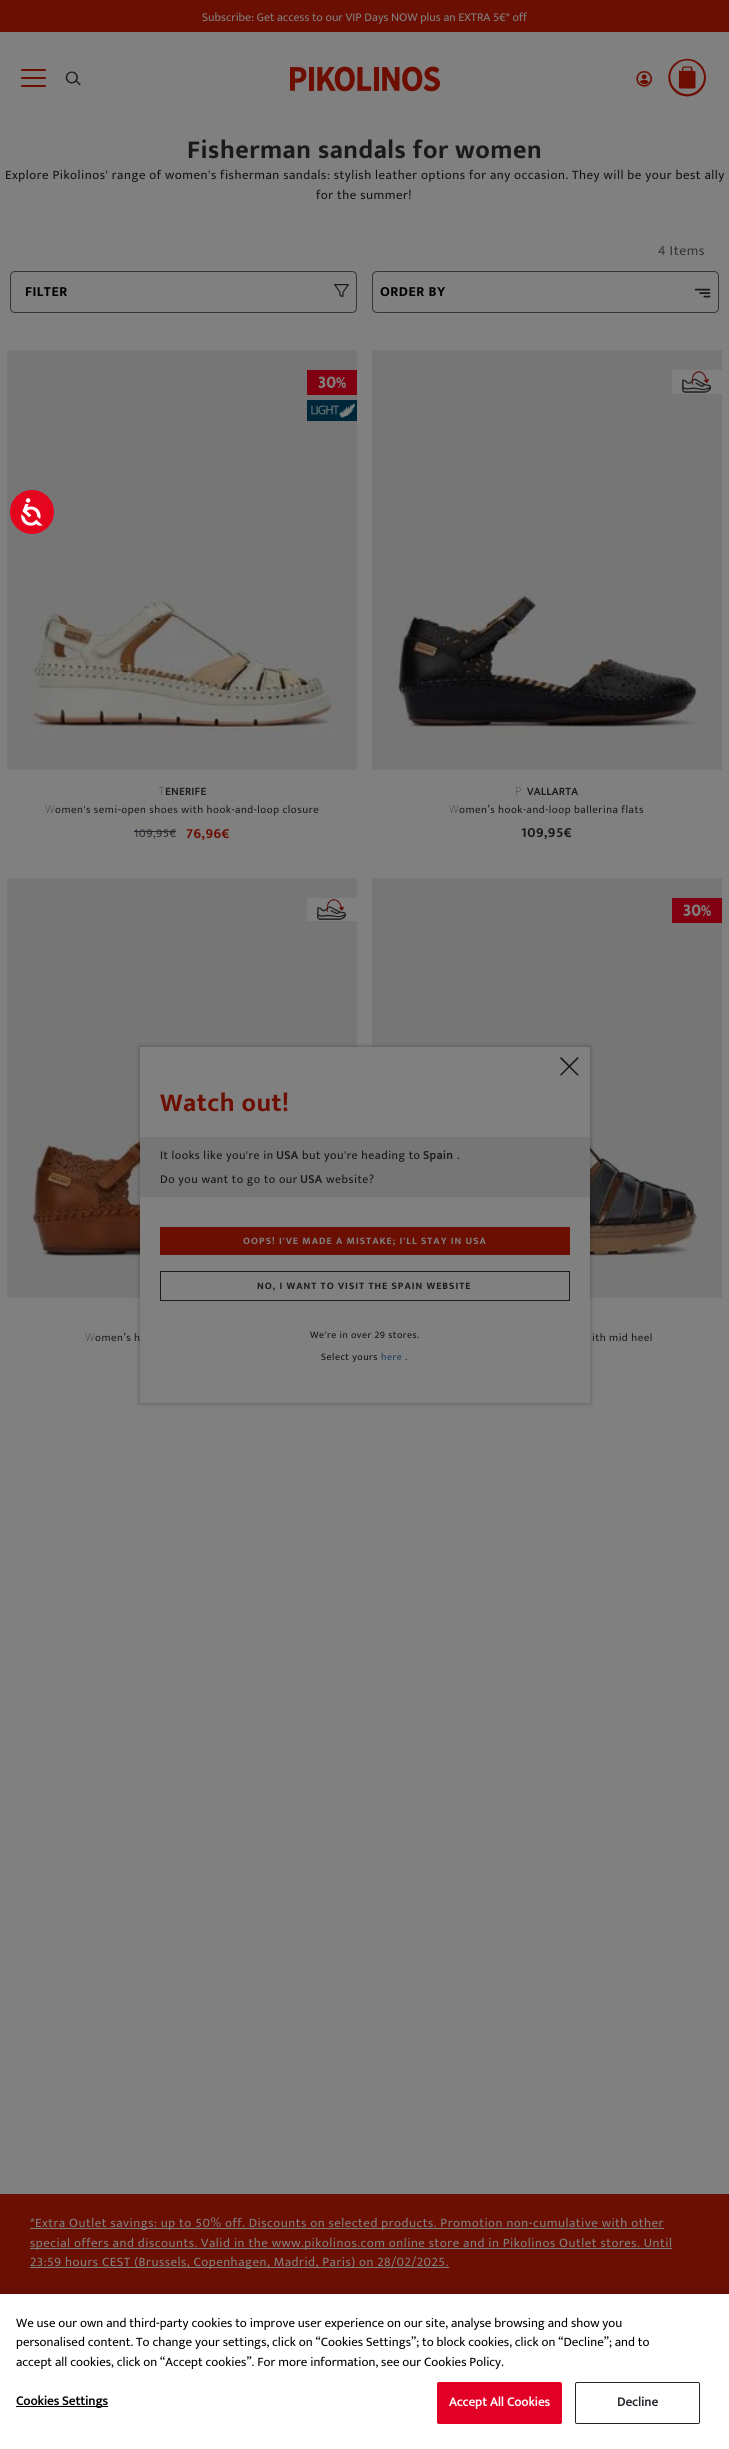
#include <cairo.h>
#include <math.h>
#include <stddef.h>

typedef struct { double x, y; const char *s; } line_t;

static void ink(cairo_t *ctx, unsigned color) {
    cairo_set_source_rgb(ctx, (color >> 16) / 255.0, (color >> 8 & 255) / 255.0, (color & 255) / 255.0);
}

static void write_spaced(cairo_t *ctx, double x, double y, const char *s, double letter, double word) {
    cairo_move_to(ctx, x, y);
    while (*s) {
        char ch[5] = {0};
        int n = 0;
        do ch[n++] = *s++; while ((*s & 0xC0) == 0x80);
        cairo_show_text(ctx, ch);
        cairo_rel_move_to(ctx, letter + word * (*ch == ' '), 0);
    }
}

static void round_path(cairo_t *ctx, double x, double y, double w, double h, double r) {
    cairo_new_sub_path(ctx);
    cairo_arc(ctx, x + w - r, y + h - r, r, 0, M_PI / 2);
    cairo_arc(ctx, x + r, y + h - r, r, M_PI / 2, M_PI);
    cairo_arc(ctx, x + r, y + r, r, M_PI, 1.5 * M_PI);
    cairo_arc(ctx, x + w - r, y + r, r, 1.5 * M_PI, 2 * M_PI);
    cairo_close_path(ctx);
}

static void blur_box(cairo_t *ctx, double x, double y, double w, double h, double r, double blur, double alpha) {
    cairo_push_group_with_content(ctx, CAIRO_CONTENT_ALPHA);
    cairo_set_operator(ctx, CAIRO_OPERATOR_SOURCE);
    for (int i = 15; i >= -15 && fmin(w, h) + blur * i / 3 > 0; i -= 2) {
        double e = blur * i / 6;
        cairo_set_source_rgba(ctx, 0, 0, 0, alpha * erfc((i - 1) / 8.5) / 2);
        round_path(ctx, x - e, y - e, w + 2 * e, h + 2 * e, fmax(0, fmin(r + e + blur * .6, fmin(w, h) / 2 + e)));
        cairo_fill(ctx);
    }
    cairo_pattern_t *soft = cairo_pop_group(ctx);
    cairo_mask(ctx, soft);
    cairo_pattern_destroy(soft);
}

static void paste(cairo_t *ctx, const char *path, double x, double y, double w, double h) {
    cairo_surface_t *image = cairo_image_surface_create_from_png(path);
    cairo_save(ctx);
    cairo_set_source_surface(ctx, image, x, y);
    cairo_rectangle(ctx, x, y, w, h);
    cairo_fill(ctx);
    cairo_restore(ctx);
    cairo_surface_destroy(image);
}

int main(void) {
    cairo_surface_t *surface = cairo_image_surface_create(CAIRO_FORMAT_RGB24, 729, 2449);
    cairo_t *ctx = cairo_create(surface);
    cairo_font_options_t *options = cairo_font_options_create();
    cairo_font_options_set_hint_metrics(options, CAIRO_HINT_METRICS_OFF);
    cairo_font_options_set_hint_style(options, CAIRO_HINT_STYLE_NONE);
    cairo_set_font_options(ctx, options);
    cairo_set_miter_limit(ctx, 4);
    ink(ctx, 0x808080);
    cairo_paint(ctx);
    ink(ctx, 0x6C0F03);
    cairo_rectangle(ctx, 0, 0, 729, 32);
    cairo_fill(ctx);
    cairo_select_font_face(ctx, "Mukta", CAIRO_FONT_SLANT_NORMAL, CAIRO_FONT_WEIGHT_NORMAL);
    cairo_set_font_size(ctx, 12);
    ink(ctx, 0x808080);
    cairo_move_to(ctx, 202, 21);
    cairo_show_text(ctx, "Subscribe: Get access to our VIP Days NOW plus an EXTRA 5€* off");
    ink(ctx, 0x6C0F03);
    round_path(ctx, 21, 77, 25, 2, 1);
    cairo_fill(ctx);
    round_path(ctx, 21, 69, 25, 2, 1);
    cairo_fill(ctx);
    round_path(ctx, 21, 85, 25, 2, 1);
    cairo_fill(ctx);
    paste(ctx, "media/1.png", 65, 71, 16, 15);
    paste(ctx, "media/2.png", 290, 66, 150, 26);
    paste(ctx, "media/3.png", 636, 71, 17, 16);
    paste(ctx, "media/4.png", 668, 58, 38, 39);
    cairo_select_font_face(ctx, "Mukta", CAIRO_FONT_SLANT_NORMAL, CAIRO_FONT_WEIGHT_BOLD);
    cairo_set_font_size(ctx, 26);
    ink(ctx, 0x1B1A19);
    write_spaced(ctx, 187, 158, "Fisherman sandals for women", 0.5, 0);
    cairo_select_font_face(ctx, "Mukta", CAIRO_FONT_SLANT_NORMAL, CAIRO_FONT_WEIGHT_NORMAL);
    cairo_set_font_size(ctx, 13);
    ink(ctx, 0x111315);
    write_spaced(ctx, 5, 179, "Explore Pikolinos' range of women's fisherman sandals: stylish leather options for any occasion. They will be your best ally", 0.5, 0);
    write_spaced(ctx, 316, 199, "for the summer!", 0.5, 0);
    cairo_set_font_size(ctx, 14);
    ink(ctx, 0x383433);
    write_spaced(ctx, 658, 255, "4 Items", 0.5, 0);
    round_path(ctx, 10.5, 271.5, 346, 41, 4.5);
    cairo_set_line_width(ctx, 1);
    cairo_stroke(ctx);
    cairo_select_font_face(ctx, "Mukta", CAIRO_FONT_SLANT_NORMAL, CAIRO_FONT_WEIGHT_BOLD);
    ink(ctx, 0x000000);
    write_spaced(ctx, 25, 296, "FILTER", 0.5, 0);
    paste(ctx, "media/5.png", 334, 284, 17, 13);
    round_path(ctx, 372.5, 271.5, 346, 41, 4.5);
    ink(ctx, 0x383433);
    cairo_stroke(ctx);
    ink(ctx, 0x000000);
    write_spaced(ctx, 380, 296, "ORDER BY", 0.5, 0);
    paste(ctx, "media/6.png", 695, 288, 16, 10);
    paste(ctx, "media/7.png", 7, 350, 350, 420);
    paste(ctx, "media/8.png", 307, 370, 50, 25);
    paste(ctx, "media/9.png", 307, 400, 50, 21);
    cairo_select_font_face(ctx, "Noto Sans Thin", CAIRO_FONT_SLANT_NORMAL, CAIRO_FONT_WEIGHT_NORMAL);
    cairo_set_font_size(ctx, 11);
    ink(ctx, 0x1B1A19);
    write_spaced(ctx, 159, 795, "T", 0.5, 0);
    cairo_select_font_face(ctx, "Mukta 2", CAIRO_FONT_SLANT_NORMAL, CAIRO_FONT_WEIGHT_BOLD);
    write_spaced(ctx, 165, 795, "ENERIFE", 0.5, 0);
    cairo_select_font_face(ctx, "Noto Sans Thin", CAIRO_FONT_SLANT_NORMAL, CAIRO_FONT_WEIGHT_NORMAL);
    write_spaced(ctx, 45, 813, "W", 0.5, 0);
    cairo_select_font_face(ctx, "Mukta", CAIRO_FONT_SLANT_NORMAL, CAIRO_FONT_WEIGHT_NORMAL);
    write_spaced(ctx, 55, 813, "omen's semi-open shoes with hook-and-loop closure", 0.5, 0);
    cairo_set_font_size(ctx, 12);
    ink(ctx, 0x2A2931);
    write_spaced(ctx, 134, 837, "109,95€", 0.5, 0);
    cairo_rectangle(ctx, 134, 831, 42, 1);
    cairo_fill(ctx);
    cairo_select_font_face(ctx, "Mukta", CAIRO_FONT_SLANT_NORMAL, CAIRO_FONT_WEIGHT_BOLD);
    cairo_set_font_size(ctx, 14);
    ink(ctx, 0x6C0F03);
    write_spaced(ctx, 186, 838, "76,96€", 0.5, 0);
    paste(ctx, "media/10.png", 372, 350, 350, 420);
    paste(ctx, "media/11.png", 672, 370, 50, 24);
    cairo_select_font_face(ctx, "Noto Sans Thin", CAIRO_FONT_SLANT_NORMAL, CAIRO_FONT_WEIGHT_NORMAL);
    cairo_set_font_size(ctx, 11);
    ink(ctx, 0x1B1A19);
    write_spaced(ctx, 515, 795, "P.", 0.5, 0);
    cairo_select_font_face(ctx, "Mukta 2", CAIRO_FONT_SLANT_NORMAL, CAIRO_FONT_WEIGHT_BOLD);
    write_spaced(ctx, 527, 795, "VALLARTA", 0.5, 0);
    cairo_select_font_face(ctx, "Noto Sans Thin", CAIRO_FONT_SLANT_NORMAL, CAIRO_FONT_WEIGHT_NORMAL);
    write_spaced(ctx, 449, 813, "W", 0.5, 0);
    cairo_select_font_face(ctx, "Mukta", CAIRO_FONT_SLANT_NORMAL, CAIRO_FONT_WEIGHT_NORMAL);
    write_spaced(ctx, 459, 813, "omen’s hook-and-loop ballerina flats", 0.5, 0);
    cairo_select_font_face(ctx, "Mukta", CAIRO_FONT_SLANT_NORMAL, CAIRO_FONT_WEIGHT_BOLD);
    cairo_set_font_size(ctx, 14);
    write_spaced(ctx, 521, 837, "109,95€", 0.5, 0);
    paste(ctx, "media/12.png", 7, 878, 350, 420);
    paste(ctx, "media/13.png", 307, 898, 50, 23);
    cairo_select_font_face(ctx, "Noto Sans Thin", CAIRO_FONT_SLANT_NORMAL, CAIRO_FONT_WEIGHT_NORMAL);
    cairo_set_font_size(ctx, 11);
    write_spaced(ctx, 85, 1341, "W", 0.5, 0);
    cairo_select_font_face(ctx, "Mukta", CAIRO_FONT_SLANT_NORMAL, CAIRO_FONT_WEIGHT_NORMAL);
    write_spaced(ctx, 95, 1341, "omen’s h", 0.5, 0);
    paste(ctx, "media/14.png", 372, 878, 350, 420);
    paste(ctx, "media/8.png", 672, 898, 50, 25);
    write_spaced(ctx, 592, 1341, "ith mid heel", 0.5, 0);
    ink(ctx, 0x6C0F03);
    cairo_rectangle(ctx, 0, 2194, 729, 100);
    cairo_fill(ctx);
    ink(ctx, 0x808080);
    cairo_rectangle(ctx, 30, 2228, 634, 1);
    cairo_fill(ctx);
    cairo_set_font_size(ctx, 13);
    write_spaced(ctx, 30, 2227, "*Extra Outlet savings: up to 50% off. Discounts on selected products. Promotion non-cumulative with other", 0.5, 0);
    cairo_rectangle(ctx, 30, 2248, 642, 1);
    cairo_fill(ctx);
    write_spaced(ctx, 30, 2247, "special offers and discounts. Valid in the www.pikolinos.com online store and in Pikolinos Outlet stores. Until", 0.5, 0);
    cairo_rectangle(ctx, 30, 2267, 419, 1);
    cairo_fill(ctx);
    write_spaced(ctx, 30, 2266, "23:59 hours CEST (Brussels, Copenhagen, Madrid, Paris) on 28/02/2025.", 0.5, 0);
    ink(ctx, 0xE6051F);
    cairo_new_path(ctx);
    cairo_arc(ctx, 32, 512, 22, 0, 2 * M_PI);
    cairo_fill(ctx);
    paste(ctx, "media/15.png", 21, 498, 22, 28);
    ink(ctx, 0x171717);
    blur_box(ctx, 139, 1046, 452, 358, 0, 2, 0.25);
    ink(ctx, 0x808080);
    cairo_rectangle(ctx, 140, 1047, 450, 356);
    cairo_fill(ctx);
    paste(ctx, "media/16.png", 560, 1057, 19, 19);
    cairo_select_font_face(ctx, "Mukta", CAIRO_FONT_SLANT_NORMAL, CAIRO_FONT_WEIGHT_BOLD);
    cairo_set_font_size(ctx, 26);
    ink(ctx, 0x6C0F03);
    write_spaced(ctx, 160, 1111, "Watch out!", 0.5, 0);
    ink(ctx, 0x767676);
    cairo_rectangle(ctx, 140, 1137, 450, 60);
    cairo_fill(ctx);
    cairo_select_font_face(ctx, "Mukta", CAIRO_FONT_SLANT_NORMAL, CAIRO_FONT_WEIGHT_NORMAL);
    cairo_set_font_size(ctx, 12);
    ink(ctx, 0x111315);
    write_spaced(ctx, 160, 1159, "It looks like you're in", 0.5, 0);
    cairo_select_font_face(ctx, "Mukta 2", CAIRO_FONT_SLANT_NORMAL, CAIRO_FONT_WEIGHT_BOLD);
    ink(ctx, 0x1B1A19);
    write_spaced(ctx, 276, 1159, "USA", 0.5, 0);
    cairo_select_font_face(ctx, "Mukta", CAIRO_FONT_SLANT_NORMAL, CAIRO_FONT_WEIGHT_NORMAL);
    ink(ctx, 0x111315);
    write_spaced(ctx, 302, 1159, "but you're heading to", 0.5, 0);
    cairo_select_font_face(ctx, "Mukta 2", CAIRO_FONT_SLANT_NORMAL, CAIRO_FONT_WEIGHT_BOLD);
    ink(ctx, 0x1B1A19);
    write_spaced(ctx, 423, 1159, "Spain", 0.5, 0);
    cairo_select_font_face(ctx, "Mukta", CAIRO_FONT_SLANT_NORMAL, CAIRO_FONT_WEIGHT_NORMAL);
    ink(ctx, 0x111315);
    write_spaced(ctx, 457, 1159, ".", 0.5, 0);
    write_spaced(ctx, 160, 1183, "Do you want to go to our", 0.5, 0);
    cairo_select_font_face(ctx, "Mukta 2", CAIRO_FONT_SLANT_NORMAL, CAIRO_FONT_WEIGHT_BOLD);
    ink(ctx, 0x1B1A19);
    write_spaced(ctx, 300, 1183, "USA", 0.5, 0);
    cairo_select_font_face(ctx, "Mukta", CAIRO_FONT_SLANT_NORMAL, CAIRO_FONT_WEIGHT_NORMAL);
    ink(ctx, 0x111315);
    write_spaced(ctx, 326, 1183, "website?", 0.5, 0);
    ink(ctx, 0x6C0F03);
    cairo_rectangle(ctx, 160, 1227, 410, 28);
    cairo_fill(ctx);
    cairo_select_font_face(ctx, "Mukta", CAIRO_FONT_SLANT_NORMAL, CAIRO_FONT_WEIGHT_BOLD);
    cairo_set_font_size(ctx, 10);
    ink(ctx, 0x808080);
    write_spaced(ctx, 243, 1244, "OOPS! I'VE MADE A MISTAKE; I'LL STAY IN USA", 1, 0);
    cairo_rectangle(ctx, 160.5, 1271.5, 409, 29);
    ink(ctx, 0x1B1A19);
    cairo_stroke(ctx);
    write_spaced(ctx, 257, 1289, "NO, I WANT TO VISIT THE SPAIN WEBSITE", 1, 0);
    cairo_select_font_face(ctx, "Mukta", CAIRO_FONT_SLANT_NORMAL, CAIRO_FONT_WEIGHT_NORMAL);
    ink(ctx, 0x111315);
    write_spaced(ctx, 310, 1338, "We're in over 29 stores.", 0.5, 0);
    write_spaced(ctx, 321, 1360, "Select yours", 0.5, 0);
    ink(ctx, 0x1A3D5C);
    write_spaced(ctx, 381, 1360, "here", 0.5, 0);
    ink(ctx, 0x111315);
    write_spaced(ctx, 405, 1360, ".", 0.5, 0);
    ink(ctx, 0x000000);
    blur_box(ctx, 0, 2294, 729, 155, 0, 9, 0.2);
    ink(ctx, 0xFFFFFF);
    cairo_rectangle(ctx, 0, 2294, 729, 155);
    cairo_fill(ctx);
    cairo_set_font_size(ctx, 13);
    ink(ctx, 0x000000);
    {
        static const line_t items[] = {
            {16, 2327, "We use our own and third-party cookies to improve user experience on our site, analyse browsing and show you"},
            {16, 2346, "personalised content. To change your settings, click on “Cookies Settings”; to block cookies, click on “Decline”; and to"},
            {16, 2366, "accept all cookies, click on “Accept cookies”. For more information, see our Cookies Policy."},
        };
        for (size_t i = 0; i < sizeof items / sizeof *items; i++) {
            cairo_move_to(ctx, items[i].x, items[i].y);
            cairo_show_text(ctx, items[i].s);
        }
    }
    cairo_rectangle(ctx, 16, 2406, 92, 1);
    cairo_fill(ctx);
    cairo_select_font_face(ctx, "Mukta 2", CAIRO_FONT_SLANT_NORMAL, CAIRO_FONT_WEIGHT_BOLD);
    write_spaced(ctx, 16, 2405, "Cookies Settings", 0.1, 0);
    ink(ctx, 0xE20026);
    round_path(ctx, 437.5, 2382.5, 124, 41, 1.5);
    cairo_fill_preserve(ctx);
    cairo_stroke(ctx);
    ink(ctx, 0xFFFFFF);
    write_spaced(ctx, 449, 2406, "Accept All Cookies", 0.1, 0);
    round_path(ctx, 575.5, 2382.5, 124, 41, 1.5);
    ink(ctx, 0x212529);
    cairo_stroke(ctx);
    write_spaced(ctx, 617, 2406, "Decline", 0.1, 0);
    cairo_surface_write_to_png(surface, "image.png");
    cairo_font_options_destroy(options);
    cairo_destroy(ctx);
    cairo_surface_destroy(surface);
    return 0;
}
